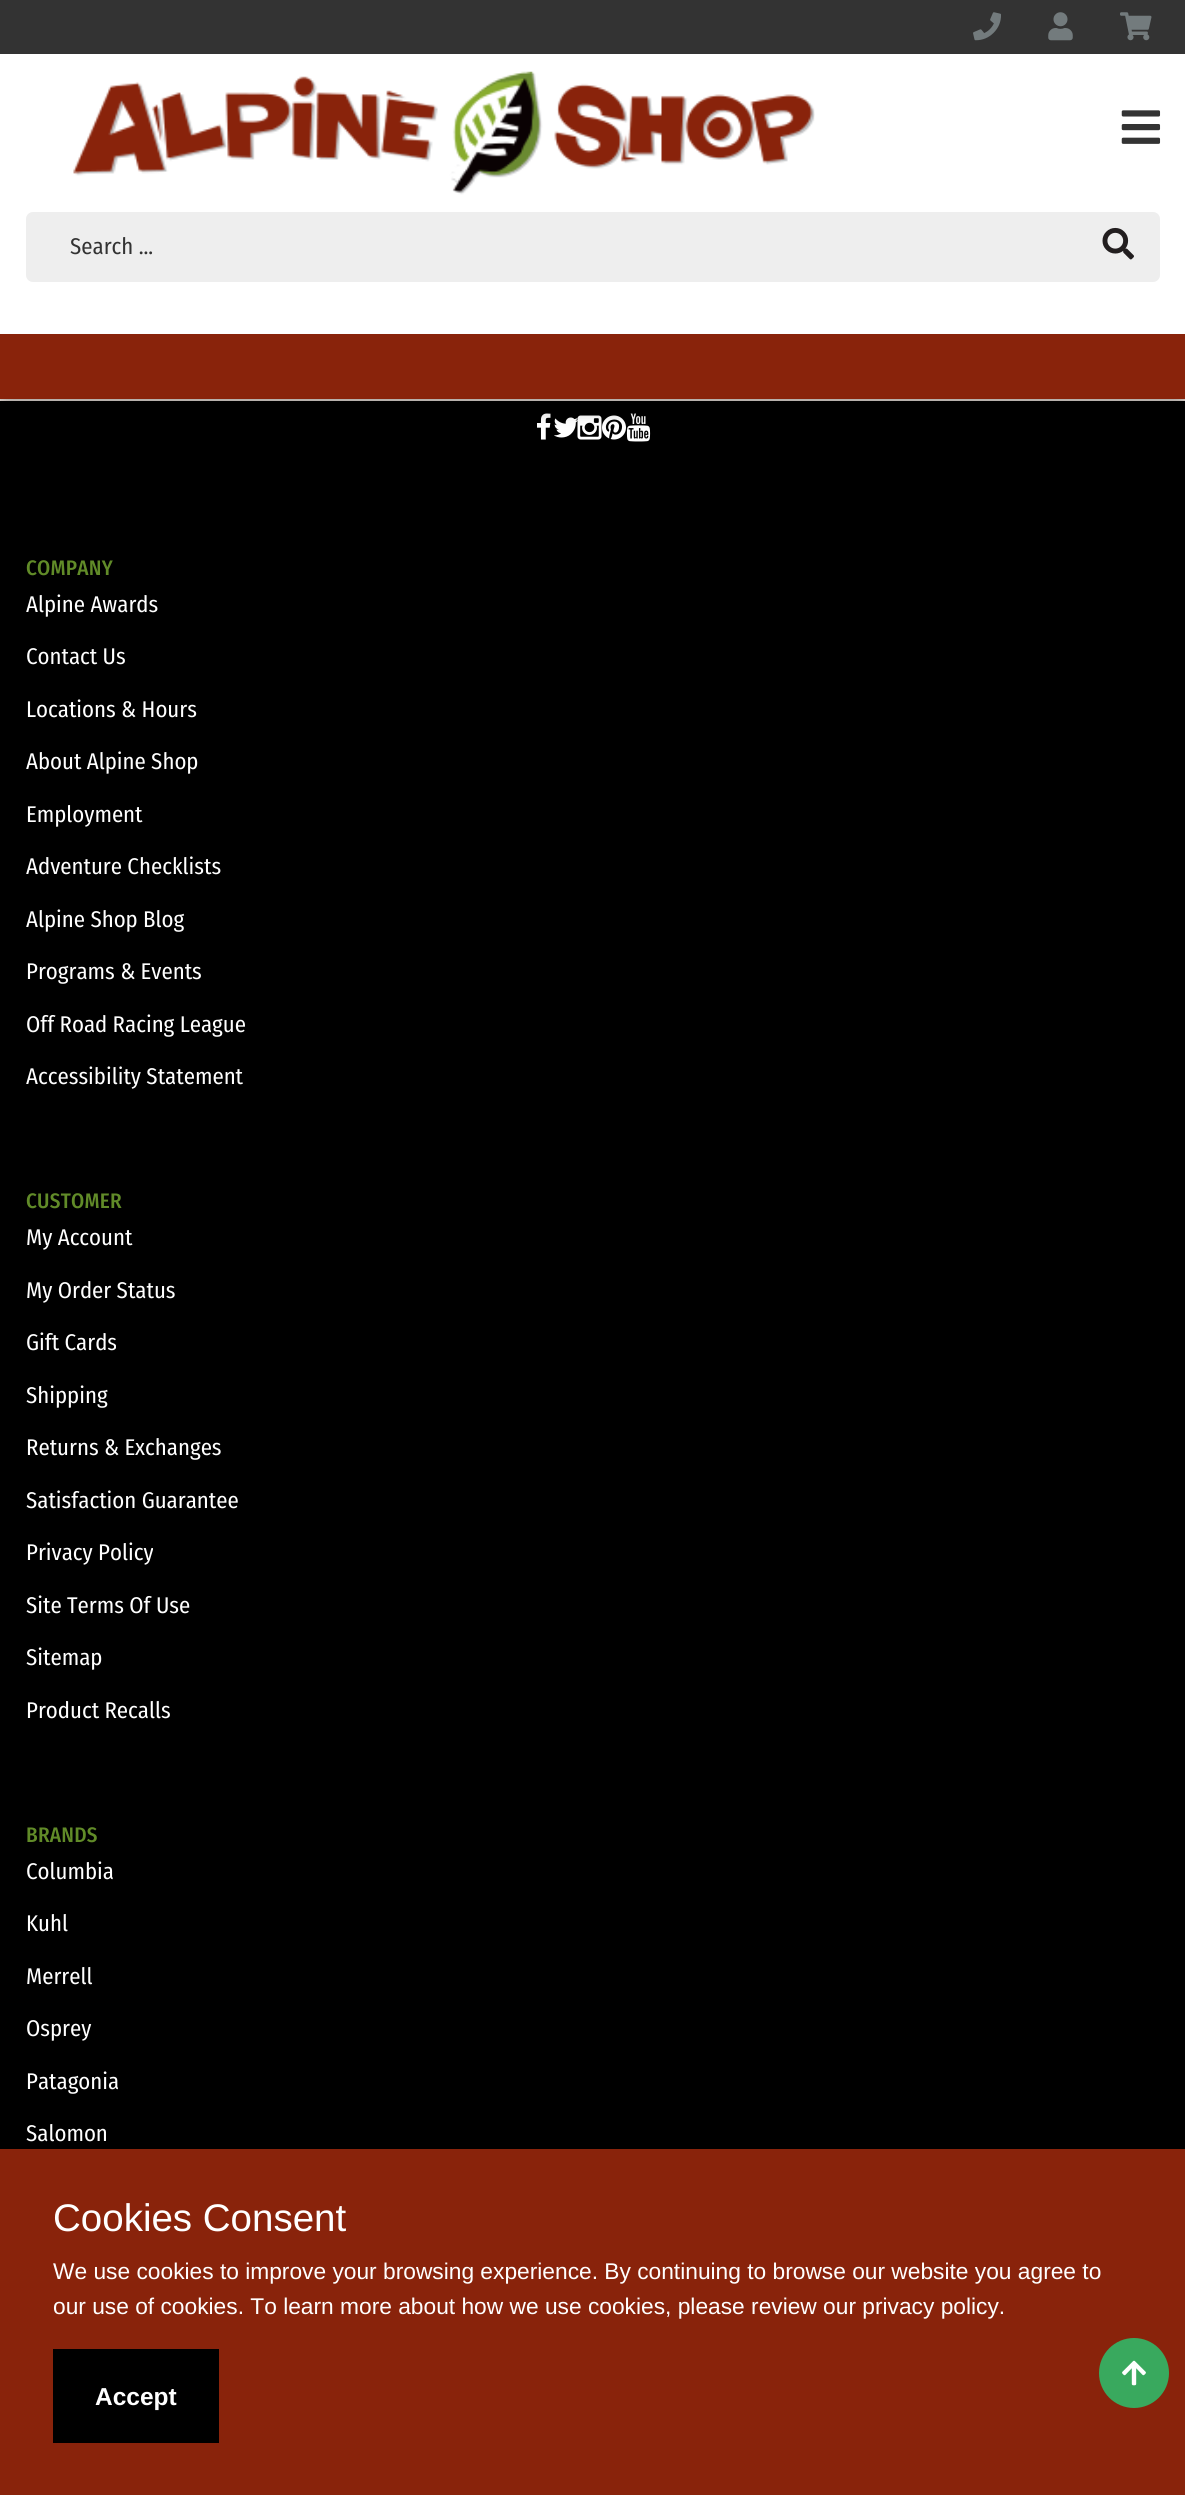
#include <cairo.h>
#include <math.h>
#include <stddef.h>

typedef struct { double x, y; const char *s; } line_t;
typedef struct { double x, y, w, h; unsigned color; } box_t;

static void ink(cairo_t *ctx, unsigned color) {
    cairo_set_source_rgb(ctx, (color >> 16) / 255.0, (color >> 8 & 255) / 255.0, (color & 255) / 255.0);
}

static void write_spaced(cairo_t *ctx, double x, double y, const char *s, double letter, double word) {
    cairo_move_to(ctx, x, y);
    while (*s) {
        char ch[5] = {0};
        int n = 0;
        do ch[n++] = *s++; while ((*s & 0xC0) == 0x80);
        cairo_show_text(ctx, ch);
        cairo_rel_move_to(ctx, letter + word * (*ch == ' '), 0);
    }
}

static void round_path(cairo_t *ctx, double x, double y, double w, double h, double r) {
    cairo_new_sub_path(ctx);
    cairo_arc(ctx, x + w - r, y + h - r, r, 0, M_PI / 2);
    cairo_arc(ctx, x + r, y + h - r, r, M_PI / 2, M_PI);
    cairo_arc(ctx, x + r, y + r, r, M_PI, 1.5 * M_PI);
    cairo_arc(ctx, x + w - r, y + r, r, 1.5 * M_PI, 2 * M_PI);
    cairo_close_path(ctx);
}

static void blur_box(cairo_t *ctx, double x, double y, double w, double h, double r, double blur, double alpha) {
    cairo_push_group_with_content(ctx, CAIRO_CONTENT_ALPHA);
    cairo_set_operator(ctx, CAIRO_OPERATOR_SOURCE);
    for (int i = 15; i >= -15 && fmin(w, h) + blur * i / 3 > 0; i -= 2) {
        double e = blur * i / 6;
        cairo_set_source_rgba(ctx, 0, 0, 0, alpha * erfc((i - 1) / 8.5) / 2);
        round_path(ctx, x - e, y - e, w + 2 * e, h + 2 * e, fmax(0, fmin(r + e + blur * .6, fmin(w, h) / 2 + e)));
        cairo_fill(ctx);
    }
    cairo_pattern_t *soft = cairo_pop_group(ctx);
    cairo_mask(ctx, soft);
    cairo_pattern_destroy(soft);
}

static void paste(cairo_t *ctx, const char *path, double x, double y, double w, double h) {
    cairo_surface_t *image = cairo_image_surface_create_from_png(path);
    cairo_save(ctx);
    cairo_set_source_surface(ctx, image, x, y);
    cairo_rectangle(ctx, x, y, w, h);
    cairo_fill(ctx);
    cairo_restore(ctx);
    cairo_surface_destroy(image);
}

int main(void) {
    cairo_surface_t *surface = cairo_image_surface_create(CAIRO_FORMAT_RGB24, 1185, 2495);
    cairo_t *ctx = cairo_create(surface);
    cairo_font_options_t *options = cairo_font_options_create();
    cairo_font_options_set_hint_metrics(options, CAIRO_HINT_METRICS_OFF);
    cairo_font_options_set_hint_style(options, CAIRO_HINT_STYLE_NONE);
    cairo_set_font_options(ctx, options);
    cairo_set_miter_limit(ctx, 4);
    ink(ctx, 0x000000);
    cairo_paint(ctx);
    {
        static const box_t items[] = {
            {0, 54, 1185, 280, 0xFFFFFF},
            {0, 399, 1185, 2, 0xE3DAD5},
            {0, 0, 1185, 54, 0x333333},
        };
        for (size_t i = 0; i < sizeof items / sizeof *items; i++) {
            ink(ctx, items[i].color);
            cairo_rectangle(ctx, items[i].x, items[i].y, items[i].w, items[i].h);
            cairo_fill(ctx);
        }
    }
    paste(ctx, "media/1.png", 973, 12, 28, 29);
    paste(ctx, "media/2.png", 1048, 12, 25, 29);
    paste(ctx, "media/3.png", 1120, 12, 32, 29);
    paste(ctx, "media/4.png", 73, 71, 742, 124);
    paste(ctx, "media/5.png", 1121, 110, 40, 34);
    ink(ctx, 0xEEEEEE);
    round_path(ctx, 26, 212, 1134, 70, 7);
    cairo_fill(ctx);
    cairo_select_font_face(ctx, "Fira Sans Condensed", CAIRO_FONT_SLANT_NORMAL, CAIRO_FONT_WEIGHT_NORMAL);
    cairo_set_font_size(ctx, 22.75);
    ink(ctx, 0x333333);
    cairo_move_to(ctx, 70, 254);
    cairo_show_text(ctx, "Search ...");
    paste(ctx, "media/6.png", 1102, 227, 32, 33);
    paste(ctx, "media/7.png", 537, 413, 14, 27);
    paste(ctx, "media/8.png", 554, 417, 24, 21);
    paste(ctx, "media/9.png", 577, 415, 25, 25);
    paste(ctx, "media/10.png", 602, 415, 24, 25);
    paste(ctx, "media/11.png", 626, 413, 25, 29);
    ink(ctx, 0x000000);
    blur_box(ctx, 0, 348, 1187, 65, 0, 7, 0.2);
    ink(ctx, 0x89230B);
    cairo_rectangle(ctx, 0, 334, 1185, 65);
    cairo_fill(ctx);
    cairo_select_font_face(ctx, "Fira Sans Condensed Medium", CAIRO_FONT_SLANT_NORMAL, CAIRO_FONT_WEIGHT_NORMAL);
    cairo_set_font_size(ctx, 21);
    ink(ctx, 0x618B28);
    write_spaced(ctx, 26, 575, "COMPANY", 0.25, 0);
    cairo_select_font_face(ctx, "Fira Sans Condensed", CAIRO_FONT_SLANT_NORMAL, CAIRO_FONT_WEIGHT_NORMAL);
    cairo_set_font_size(ctx, 22.75);
    ink(ctx, 0xFFFFFF);
    {
        static const line_t items[] = {
            {26, 612, "Alpine Awards"},
            {26, 664, "Contact Us"},
            {26, 717, "Locations & Hours"},
            {26, 769, "About Alpine Shop"},
            {26, 822, "Employment"},
            {26, 874, "Adventure Checklists"},
            {26, 927, "Alpine Shop Blog"},
            {26, 979, "Programs & Events"},
            {26, 1032, "Off Road Racing League"},
            {26, 1084, "Accessibility Statement"},
        };
        for (size_t i = 0; i < sizeof items / sizeof *items; i++) {
            cairo_move_to(ctx, items[i].x, items[i].y);
            cairo_show_text(ctx, items[i].s);
        }
    }
    cairo_select_font_face(ctx, "Fira Sans Condensed Medium", CAIRO_FONT_SLANT_NORMAL, CAIRO_FONT_WEIGHT_NORMAL);
    cairo_set_font_size(ctx, 21);
    ink(ctx, 0x618B28);
    write_spaced(ctx, 26, 1208, "CUSTOMER", 0.25, 0);
    cairo_select_font_face(ctx, "Fira Sans Condensed", CAIRO_FONT_SLANT_NORMAL, CAIRO_FONT_WEIGHT_NORMAL);
    cairo_set_font_size(ctx, 22.75);
    ink(ctx, 0xFFFFFF);
    {
        static const line_t items[] = {
            {26, 1245, "My Account"},
            {26, 1298, "My Order Status"},
            {26, 1350, "Gift Cards"},
            {26, 1403, "Shipping"},
            {26, 1455, "Returns & Exchanges"},
            {26, 1508, "Satisfaction Guarantee"},
            {26, 1560, "Privacy Policy"},
            {26, 1613, "Site Terms Of Use"},
            {26, 1665, "Sitemap"},
            {26, 1718, "Product Recalls"},
        };
        for (size_t i = 0; i < sizeof items / sizeof *items; i++) {
            cairo_move_to(ctx, items[i].x, items[i].y);
            cairo_show_text(ctx, items[i].s);
        }
    }
    cairo_select_font_face(ctx, "Fira Sans Condensed Medium", CAIRO_FONT_SLANT_NORMAL, CAIRO_FONT_WEIGHT_NORMAL);
    cairo_set_font_size(ctx, 21);
    ink(ctx, 0x618B28);
    write_spaced(ctx, 26, 1842, "BRANDS", 0.25, 0);
    cairo_select_font_face(ctx, "Fira Sans Condensed", CAIRO_FONT_SLANT_NORMAL, CAIRO_FONT_WEIGHT_NORMAL);
    cairo_set_font_size(ctx, 22.75);
    ink(ctx, 0xFFFFFF);
    {
        static const line_t items[] = {
            {26, 1879, "Columbia"},
            {26, 1931, "Kuhl"},
            {26, 1984, "Merrell"},
            {26, 2036, "Osprey"},
            {26, 2089, "Patagonia"},
            {26, 2141, "Salomon"},
        };
        for (size_t i = 0; i < sizeof items / sizeof *items; i++) {
            cairo_move_to(ctx, items[i].x, items[i].y);
            cairo_show_text(ctx, items[i].s);
        }
    }
    ink(ctx, 0x89230B);
    cairo_rectangle(ctx, 0, 2149, 1185, 346);
    cairo_fill(ctx);
    cairo_select_font_face(ctx, "Liberation Sans", CAIRO_FONT_SLANT_NORMAL, CAIRO_FONT_WEIGHT_NORMAL);
    cairo_set_font_size(ctx, 38.5);
    ink(ctx, 0xFFFFFF);
    cairo_move_to(ctx, 53, 2231);
    cairo_show_text(ctx, "Cookies Consent");
    cairo_set_font_size(ctx, 22.75);
    cairo_move_to(ctx, 53, 2279);
    cairo_show_text(ctx, "We use cookies to improve your browsing experience. By continuing to browse our website you agree to");
    cairo_move_to(ctx, 53, 2314);
    cairo_show_text(ctx, "our use of cookies. To learn more about how we use cookies, please review our privacy policy.");
    ink(ctx, 0x000000);
    cairo_rectangle(ctx, 53, 2349, 166, 94);
    cairo_fill(ctx);
    cairo_select_font_face(ctx, "Liberation Sans", CAIRO_FONT_SLANT_NORMAL, CAIRO_FONT_WEIGHT_BOLD);
    cairo_set_font_size(ctx, 24.5);
    ink(ctx, 0xFFFFFF);
    cairo_move_to(ctx, 95, 2405);
    cairo_show_text(ctx, "Accept");
    ink(ctx, 0x39A95E);
    cairo_new_path(ctx);
    cairo_arc(ctx, 1134, 2373, 35, 0, 2 * M_PI);
    cairo_fill(ctx);
    paste(ctx, "media/12.png", 1122, 2360, 24, 26);
    cairo_surface_write_to_png(surface, "image.png");
    cairo_font_options_destroy(options);
    cairo_destroy(ctx);
    cairo_surface_destroy(surface);
    return 0;
}
